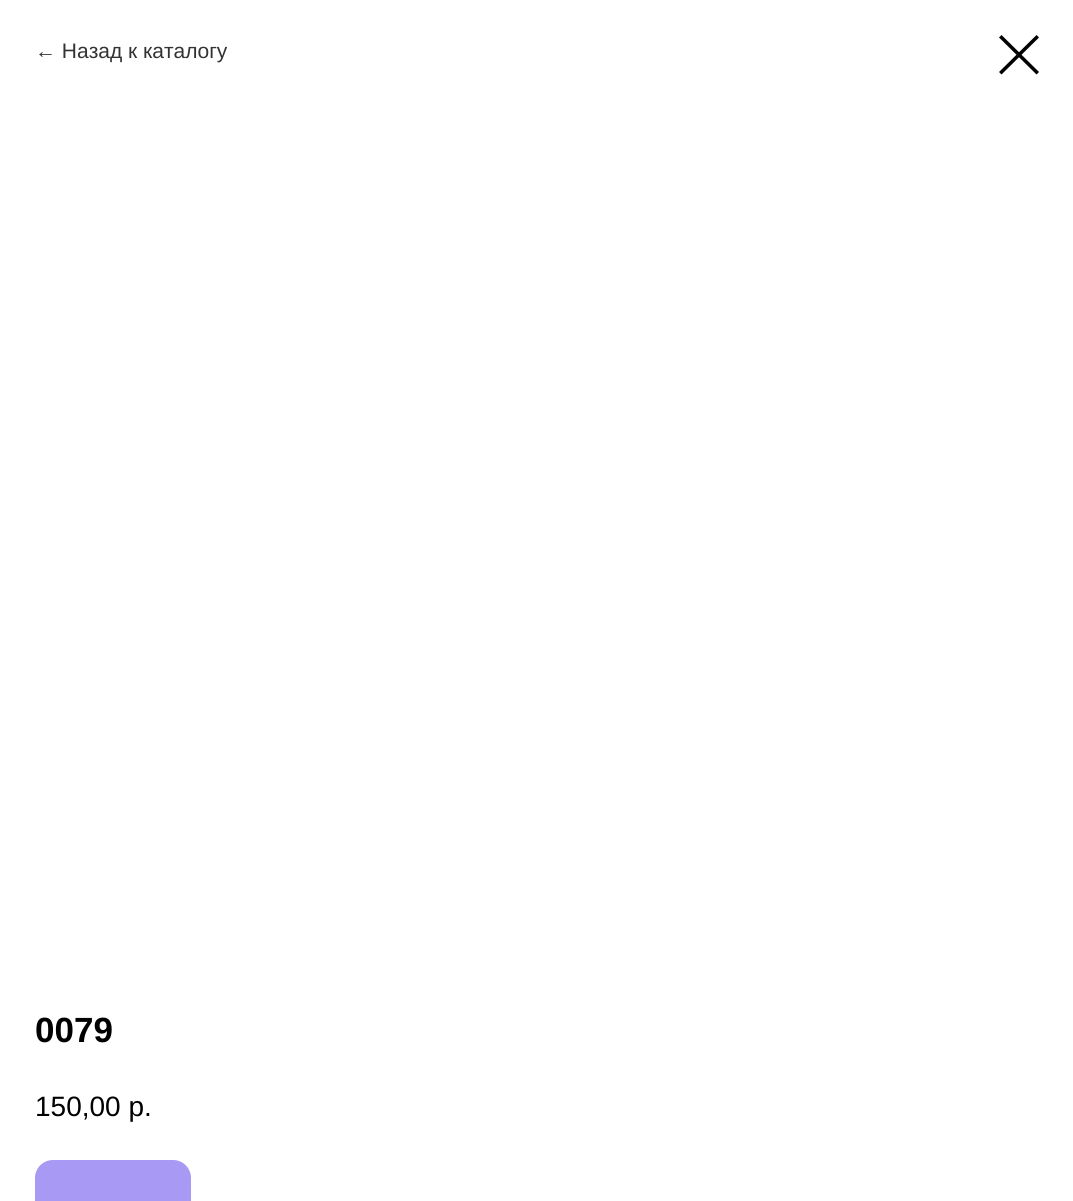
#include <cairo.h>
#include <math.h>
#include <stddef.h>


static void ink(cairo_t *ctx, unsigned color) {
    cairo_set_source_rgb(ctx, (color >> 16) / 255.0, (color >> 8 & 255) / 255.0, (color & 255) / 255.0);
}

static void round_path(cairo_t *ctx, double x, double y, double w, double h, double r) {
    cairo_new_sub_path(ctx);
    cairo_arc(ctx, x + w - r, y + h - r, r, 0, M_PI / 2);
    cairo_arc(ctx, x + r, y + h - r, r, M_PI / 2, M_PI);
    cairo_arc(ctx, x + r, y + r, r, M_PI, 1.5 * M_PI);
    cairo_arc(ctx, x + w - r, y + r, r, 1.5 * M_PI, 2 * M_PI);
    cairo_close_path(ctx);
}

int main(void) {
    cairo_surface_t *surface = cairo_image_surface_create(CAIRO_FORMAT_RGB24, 1073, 1201);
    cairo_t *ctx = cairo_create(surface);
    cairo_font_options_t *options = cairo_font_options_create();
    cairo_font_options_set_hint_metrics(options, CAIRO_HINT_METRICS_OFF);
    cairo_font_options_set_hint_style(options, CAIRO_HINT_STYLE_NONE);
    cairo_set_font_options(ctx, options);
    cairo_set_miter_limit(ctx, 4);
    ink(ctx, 0xFFFFFF);
    cairo_paint(ctx);
    cairo_select_font_face(ctx, "Liberation Sans", CAIRO_FONT_SLANT_NORMAL, CAIRO_FONT_WEIGHT_NORMAL);
    cairo_set_font_size(ctx, 21);
    ink(ctx, 0x333333);
    cairo_move_to(ctx, 35, 58);
    cairo_show_text(ctx, "← Назад к каталогу");
    ink(ctx, 0x000000);
    cairo_set_fill_rule(ctx, CAIRO_FILL_RULE_EVEN_ODD);
    cairo_new_path(ctx);
    cairo_move_to(ctx, 999, 37.5);
    cairo_line_to(ctx, 1001.5, 35);
    cairo_line_to(ctx, 1039, 72);
    cairo_line_to(ctx, 1036.5, 74.5);
    cairo_close_path(ctx);
    cairo_fill(ctx);
    cairo_new_path(ctx);
    cairo_move_to(ctx, 1036.5, 35);
    cairo_line_to(ctx, 1039, 37.5);
    cairo_line_to(ctx, 1001.5, 74.5);
    cairo_line_to(ctx, 999, 72);
    cairo_close_path(ctx);
    cairo_fill(ctx);
    cairo_select_font_face(ctx, "Liberation Sans", CAIRO_FONT_SLANT_NORMAL, CAIRO_FONT_WEIGHT_BOLD);
    cairo_set_font_size(ctx, 35);
    cairo_move_to(ctx, 35, 1042);
    cairo_show_text(ctx, "0079");
    cairo_select_font_face(ctx, "Liberation Sans", CAIRO_FONT_SLANT_NORMAL, CAIRO_FONT_WEIGHT_NORMAL);
    cairo_set_font_size(ctx, 28);
    cairo_move_to(ctx, 35, 1116);
    cairo_show_text(ctx, "150,00 р.");
    ink(ctx, 0xA899F4);
    round_path(ctx, 35, 1160, 156, 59, 18);
    cairo_fill(ctx);
    cairo_surface_write_to_png(surface, "image.png");
    cairo_font_options_destroy(options);
    cairo_destroy(ctx);
    cairo_surface_destroy(surface);
    return 0;
}
